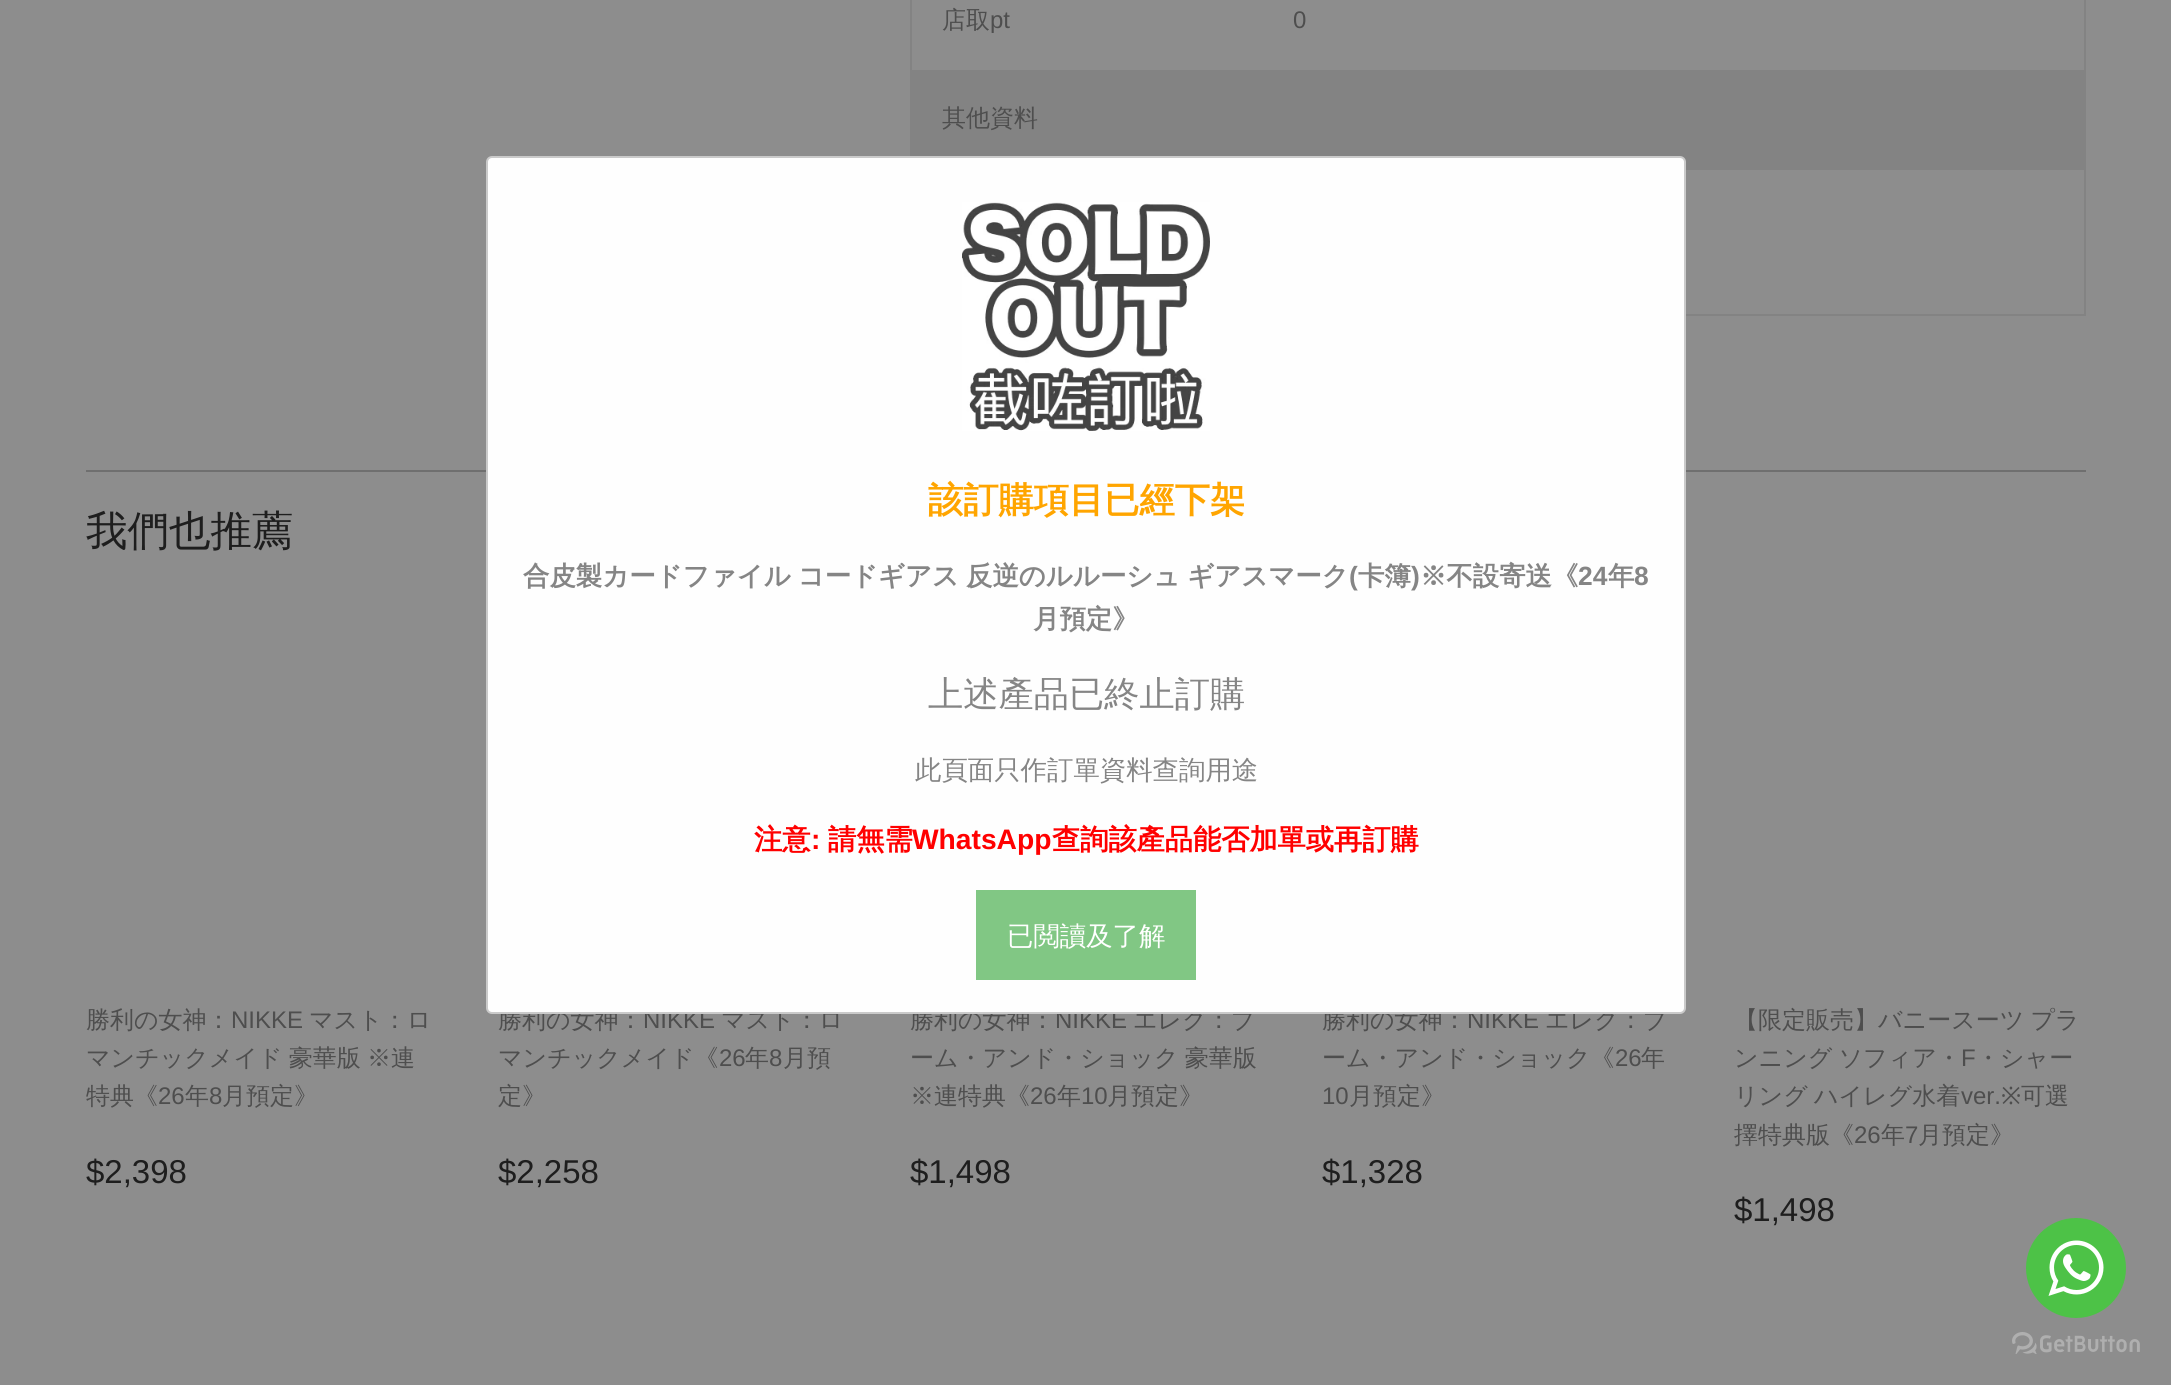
#include <cairo.h>
#include <math.h>
#include <stddef.h>

typedef struct { double x, y, w, h; unsigned color; } box_t;

static void ink(cairo_t *ctx, unsigned color) {
    cairo_set_source_rgb(ctx, (color >> 16) / 255.0, (color >> 8 & 255) / 255.0, (color & 255) / 255.0);
}

static void write_spaced(cairo_t *ctx, double x, double y, const char *s, double letter, double word) {
    cairo_move_to(ctx, x, y);
    while (*s) {
        char ch[5] = {0};
        int n = 0;
        do ch[n++] = *s++; while ((*s & 0xC0) == 0x80);
        cairo_show_text(ctx, ch);
        cairo_rel_move_to(ctx, letter + word * (*ch == ' '), 0);
    }
}

static void round_path(cairo_t *ctx, double x, double y, double w, double h, double r) {
    cairo_new_sub_path(ctx);
    cairo_arc(ctx, x + w - r, y + h - r, r, 0, M_PI / 2);
    cairo_arc(ctx, x + r, y + h - r, r, M_PI / 2, M_PI);
    cairo_arc(ctx, x + r, y + r, r, M_PI, 1.5 * M_PI);
    cairo_arc(ctx, x + w - r, y + r, r, 1.5 * M_PI, 2 * M_PI);
    cairo_close_path(ctx);
}

static void paste(cairo_t *ctx, const char *path, double x, double y, double w, double h) {
    cairo_surface_t *image = cairo_image_surface_create_from_png(path);
    cairo_save(ctx);
    cairo_set_source_surface(ctx, image, x, y);
    cairo_rectangle(ctx, x, y, w, h);
    cairo_fill(ctx);
    cairo_restore(ctx);
    cairo_surface_destroy(image);
}

int main(void) {
    cairo_surface_t *surface = cairo_image_surface_create(CAIRO_FORMAT_RGB24, 2171, 1385);
    cairo_t *ctx = cairo_create(surface);
    cairo_font_options_t *options = cairo_font_options_create();
    cairo_font_options_set_hint_metrics(options, CAIRO_HINT_METRICS_OFF);
    cairo_font_options_set_hint_style(options, CAIRO_HINT_STYLE_NONE);
    cairo_set_font_options(ctx, options);
    cairo_set_miter_limit(ctx, 4);
    ink(ctx, 0x8D8D8D);
    cairo_paint(ctx);
    {
        static const box_t items[] = {
            {2084, 0, 2, 316, 0x838383},
            {1686, 314, 400, 2, 0x838383},
            {910, 0, 2, 156, 0x838383},
        };
        for (size_t i = 0; i < sizeof items / sizeof *items; i++) {
            ink(ctx, items[i].color);
            cairo_rectangle(ctx, items[i].x, items[i].y, items[i].w, items[i].h);
            cairo_fill(ctx);
        }
    }
    cairo_select_font_face(ctx, "WenQuanYi Zen Hei Medium", CAIRO_FONT_SLANT_NORMAL, CAIRO_FONT_WEIGHT_NORMAL);
    cairo_set_font_size(ctx, 24);
    ink(ctx, 0x4E4E4E);
    cairo_move_to(ctx, 942, 28);
    cairo_show_text(ctx, "店取");
    cairo_select_font_face(ctx, "Liberation Sans", CAIRO_FONT_SLANT_NORMAL, CAIRO_FONT_WEIGHT_NORMAL);
    cairo_move_to(ctx, 990, 28);
    cairo_show_text(ctx, "pt");
    cairo_move_to(ctx, 1293, 28);
    cairo_show_text(ctx, "0");
    ink(ctx, 0x838383);
    cairo_rectangle(ctx, 912, 70, 352, 86);
    cairo_fill(ctx);
    cairo_select_font_face(ctx, "WenQuanYi Zen Hei Medium", CAIRO_FONT_SLANT_NORMAL, CAIRO_FONT_WEIGHT_NORMAL);
    ink(ctx, 0x4E4E4E);
    cairo_move_to(ctx, 942, 126);
    cairo_show_text(ctx, "其他資料");
    ink(ctx, 0x838383);
    cairo_rectangle(ctx, 1264, 70, 820, 100);
    cairo_fill(ctx);
    ink(ctx, 0x6F6F6F);
    cairo_rectangle(ctx, 86, 470, 2000, 2);
    cairo_fill(ctx);
    cairo_set_font_size(ctx, 41.5);
    ink(ctx, 0x1E1E1E);
    cairo_move_to(ctx, 86, 545);
    cairo_show_text(ctx, "我們也推薦");
    cairo_set_font_size(ctx, 24);
    ink(ctx, 0x4E4E4E);
    cairo_move_to(ctx, 86, 1028);
    cairo_show_text(ctx, "勝利の女神：");
    cairo_select_font_face(ctx, "Liberation Sans", CAIRO_FONT_SLANT_NORMAL, CAIRO_FONT_WEIGHT_NORMAL);
    cairo_move_to(ctx, 231, 1028);
    cairo_show_text(ctx, "NIKKE");
    cairo_select_font_face(ctx, "WenQuanYi Zen Hei Medium", CAIRO_FONT_SLANT_NORMAL, CAIRO_FONT_WEIGHT_NORMAL);
    cairo_move_to(ctx, 309, 1028);
    cairo_show_text(ctx, "マスト：ロ");
    write_spaced(ctx, 86, 1066, "マンチックメイド 豪華版 ※連", 0, -1);
    cairo_move_to(ctx, 86, 1104);
    cairo_show_text(ctx, "特典《");
    cairo_select_font_face(ctx, "Liberation Sans", CAIRO_FONT_SLANT_NORMAL, CAIRO_FONT_WEIGHT_NORMAL);
    cairo_move_to(ctx, 158, 1104);
    cairo_show_text(ctx, "26");
    cairo_select_font_face(ctx, "WenQuanYi Zen Hei Medium", CAIRO_FONT_SLANT_NORMAL, CAIRO_FONT_WEIGHT_NORMAL);
    cairo_move_to(ctx, 185, 1104);
    cairo_show_text(ctx, "年");
    cairo_select_font_face(ctx, "Liberation Sans", CAIRO_FONT_SLANT_NORMAL, CAIRO_FONT_WEIGHT_NORMAL);
    cairo_move_to(ctx, 209, 1104);
    cairo_show_text(ctx, "8");
    cairo_select_font_face(ctx, "WenQuanYi Zen Hei Medium", CAIRO_FONT_SLANT_NORMAL, CAIRO_FONT_WEIGHT_NORMAL);
    cairo_move_to(ctx, 222, 1104);
    cairo_show_text(ctx, "月預定》");
    cairo_select_font_face(ctx, "Liberation Sans", CAIRO_FONT_SLANT_NORMAL, CAIRO_FONT_WEIGHT_NORMAL);
    cairo_set_font_size(ctx, 33);
    ink(ctx, 0x1E1E1E);
    cairo_move_to(ctx, 86, 1183);
    cairo_show_text(ctx, "$2,398");
    cairo_select_font_face(ctx, "WenQuanYi Zen Hei Medium", CAIRO_FONT_SLANT_NORMAL, CAIRO_FONT_WEIGHT_NORMAL);
    cairo_set_font_size(ctx, 24);
    ink(ctx, 0x4E4E4E);
    cairo_move_to(ctx, 498, 1028);
    cairo_show_text(ctx, "勝利の女神：");
    cairo_select_font_face(ctx, "Liberation Sans", CAIRO_FONT_SLANT_NORMAL, CAIRO_FONT_WEIGHT_NORMAL);
    cairo_move_to(ctx, 643, 1028);
    cairo_show_text(ctx, "NIKKE");
    cairo_select_font_face(ctx, "WenQuanYi Zen Hei Medium", CAIRO_FONT_SLANT_NORMAL, CAIRO_FONT_WEIGHT_NORMAL);
    cairo_move_to(ctx, 721, 1028);
    cairo_show_text(ctx, "マスト：ロ");
    cairo_move_to(ctx, 498, 1066);
    cairo_show_text(ctx, "マンチックメイド《");
    cairo_select_font_face(ctx, "Liberation Sans", CAIRO_FONT_SLANT_NORMAL, CAIRO_FONT_WEIGHT_NORMAL);
    cairo_move_to(ctx, 719, 1066);
    cairo_show_text(ctx, "26");
    cairo_select_font_face(ctx, "WenQuanYi Zen Hei Medium", CAIRO_FONT_SLANT_NORMAL, CAIRO_FONT_WEIGHT_NORMAL);
    cairo_move_to(ctx, 745, 1066);
    cairo_show_text(ctx, "年");
    cairo_select_font_face(ctx, "Liberation Sans", CAIRO_FONT_SLANT_NORMAL, CAIRO_FONT_WEIGHT_NORMAL);
    cairo_move_to(ctx, 769, 1066);
    cairo_show_text(ctx, "8");
    cairo_select_font_face(ctx, "WenQuanYi Zen Hei Medium", CAIRO_FONT_SLANT_NORMAL, CAIRO_FONT_WEIGHT_NORMAL);
    cairo_move_to(ctx, 783, 1066);
    cairo_show_text(ctx, "月預");
    cairo_move_to(ctx, 498, 1104);
    cairo_show_text(ctx, "定》");
    cairo_select_font_face(ctx, "Liberation Sans", CAIRO_FONT_SLANT_NORMAL, CAIRO_FONT_WEIGHT_NORMAL);
    cairo_set_font_size(ctx, 33);
    ink(ctx, 0x1E1E1E);
    cairo_move_to(ctx, 498, 1183);
    cairo_show_text(ctx, "$2,258");
    cairo_select_font_face(ctx, "WenQuanYi Zen Hei Medium", CAIRO_FONT_SLANT_NORMAL, CAIRO_FONT_WEIGHT_NORMAL);
    cairo_set_font_size(ctx, 24);
    ink(ctx, 0x4E4E4E);
    cairo_move_to(ctx, 910, 1028);
    cairo_show_text(ctx, "勝利の女神：");
    cairo_select_font_face(ctx, "Liberation Sans", CAIRO_FONT_SLANT_NORMAL, CAIRO_FONT_WEIGHT_NORMAL);
    cairo_move_to(ctx, 1055, 1028);
    cairo_show_text(ctx, "NIKKE");
    cairo_select_font_face(ctx, "WenQuanYi Zen Hei Medium", CAIRO_FONT_SLANT_NORMAL, CAIRO_FONT_WEIGHT_NORMAL);
    cairo_move_to(ctx, 1133, 1028);
    cairo_show_text(ctx, "エレグ：ブ");
    write_spaced(ctx, 910, 1066, "ーム・アンド・ショック 豪華版", 0, -1);
    cairo_move_to(ctx, 910, 1104);
    cairo_show_text(ctx, "※連特典《");
    cairo_select_font_face(ctx, "Liberation Sans", CAIRO_FONT_SLANT_NORMAL, CAIRO_FONT_WEIGHT_NORMAL);
    cairo_move_to(ctx, 1030, 1104);
    cairo_show_text(ctx, "26");
    cairo_select_font_face(ctx, "WenQuanYi Zen Hei Medium", CAIRO_FONT_SLANT_NORMAL, CAIRO_FONT_WEIGHT_NORMAL);
    cairo_move_to(ctx, 1057, 1104);
    cairo_show_text(ctx, "年");
    cairo_select_font_face(ctx, "Liberation Sans", CAIRO_FONT_SLANT_NORMAL, CAIRO_FONT_WEIGHT_NORMAL);
    cairo_move_to(ctx, 1081, 1104);
    cairo_show_text(ctx, "10");
    cairo_select_font_face(ctx, "WenQuanYi Zen Hei Medium", CAIRO_FONT_SLANT_NORMAL, CAIRO_FONT_WEIGHT_NORMAL);
    cairo_move_to(ctx, 1107, 1104);
    cairo_show_text(ctx, "月預定》");
    cairo_select_font_face(ctx, "Liberation Sans", CAIRO_FONT_SLANT_NORMAL, CAIRO_FONT_WEIGHT_NORMAL);
    cairo_set_font_size(ctx, 33);
    ink(ctx, 0x1E1E1E);
    cairo_move_to(ctx, 910, 1183);
    cairo_show_text(ctx, "$1,498");
    cairo_select_font_face(ctx, "WenQuanYi Zen Hei Medium", CAIRO_FONT_SLANT_NORMAL, CAIRO_FONT_WEIGHT_NORMAL);
    cairo_set_font_size(ctx, 24);
    ink(ctx, 0x4E4E4E);
    cairo_move_to(ctx, 1322, 1028);
    cairo_show_text(ctx, "勝利の女神：");
    cairo_select_font_face(ctx, "Liberation Sans", CAIRO_FONT_SLANT_NORMAL, CAIRO_FONT_WEIGHT_NORMAL);
    cairo_move_to(ctx, 1467, 1028);
    cairo_show_text(ctx, "NIKKE");
    cairo_select_font_face(ctx, "WenQuanYi Zen Hei Medium", CAIRO_FONT_SLANT_NORMAL, CAIRO_FONT_WEIGHT_NORMAL);
    cairo_move_to(ctx, 1545, 1028);
    cairo_show_text(ctx, "エレグ：ブ");
    cairo_move_to(ctx, 1322, 1066);
    cairo_show_text(ctx, "ーム・アンド・ショック《");
    cairo_select_font_face(ctx, "Liberation Sans", CAIRO_FONT_SLANT_NORMAL, CAIRO_FONT_WEIGHT_NORMAL);
    cairo_move_to(ctx, 1615, 1066);
    cairo_show_text(ctx, "26");
    cairo_select_font_face(ctx, "WenQuanYi Zen Hei Medium", CAIRO_FONT_SLANT_NORMAL, CAIRO_FONT_WEIGHT_NORMAL);
    cairo_move_to(ctx, 1641, 1066);
    cairo_show_text(ctx, "年");
    cairo_select_font_face(ctx, "Liberation Sans", CAIRO_FONT_SLANT_NORMAL, CAIRO_FONT_WEIGHT_NORMAL);
    cairo_move_to(ctx, 1322, 1104);
    cairo_show_text(ctx, "10");
    cairo_select_font_face(ctx, "WenQuanYi Zen Hei Medium", CAIRO_FONT_SLANT_NORMAL, CAIRO_FONT_WEIGHT_NORMAL);
    cairo_move_to(ctx, 1349, 1104);
    cairo_show_text(ctx, "月預定》");
    cairo_select_font_face(ctx, "Liberation Sans", CAIRO_FONT_SLANT_NORMAL, CAIRO_FONT_WEIGHT_NORMAL);
    cairo_set_font_size(ctx, 33);
    ink(ctx, 0x1E1E1E);
    cairo_move_to(ctx, 1322, 1183);
    cairo_show_text(ctx, "$1,328");
    cairo_select_font_face(ctx, "WenQuanYi Zen Hei Medium", CAIRO_FONT_SLANT_NORMAL, CAIRO_FONT_WEIGHT_NORMAL);
    cairo_set_font_size(ctx, 24);
    ink(ctx, 0x4E4E4E);
    write_spaced(ctx, 1734, 1028, "【限定販売】バニースーツ プラ", 0, -1);
    write_spaced(ctx, 1734, 1066, "ンニング ソフィア・", 0, -1);
    cairo_select_font_face(ctx, "Liberation Sans", CAIRO_FONT_SLANT_NORMAL, CAIRO_FONT_WEIGHT_NORMAL);
    cairo_move_to(ctx, 1961, 1066);
    cairo_show_text(ctx, "F");
    cairo_select_font_face(ctx, "WenQuanYi Zen Hei Medium", CAIRO_FONT_SLANT_NORMAL, CAIRO_FONT_WEIGHT_NORMAL);
    cairo_move_to(ctx, 1976, 1066);
    cairo_show_text(ctx, "・シャー");
    write_spaced(ctx, 1734, 1104, "リング ハイレグ水着", 0, -1);
    cairo_select_font_face(ctx, "Liberation Sans", CAIRO_FONT_SLANT_NORMAL, CAIRO_FONT_WEIGHT_NORMAL);
    cairo_move_to(ctx, 1961, 1104);
    cairo_show_text(ctx, "ver.");
    cairo_select_font_face(ctx, "Noto Sans", CAIRO_FONT_SLANT_NORMAL, CAIRO_FONT_WEIGHT_NORMAL);
    cairo_move_to(ctx, 2001, 1104);
    cairo_show_text(ctx, "※");
    cairo_select_font_face(ctx, "WenQuanYi Zen Hei Medium", CAIRO_FONT_SLANT_NORMAL, CAIRO_FONT_WEIGHT_NORMAL);
    cairo_move_to(ctx, 2021, 1104);
    cairo_show_text(ctx, "可選");
    cairo_move_to(ctx, 1734, 1143);
    cairo_show_text(ctx, "擇特典版《");
    cairo_select_font_face(ctx, "Liberation Sans", CAIRO_FONT_SLANT_NORMAL, CAIRO_FONT_WEIGHT_NORMAL);
    cairo_move_to(ctx, 1854, 1143);
    cairo_show_text(ctx, "26");
    cairo_select_font_face(ctx, "WenQuanYi Zen Hei Medium", CAIRO_FONT_SLANT_NORMAL, CAIRO_FONT_WEIGHT_NORMAL);
    cairo_move_to(ctx, 1881, 1143);
    cairo_show_text(ctx, "年");
    cairo_select_font_face(ctx, "Liberation Sans", CAIRO_FONT_SLANT_NORMAL, CAIRO_FONT_WEIGHT_NORMAL);
    cairo_move_to(ctx, 1905, 1143);
    cairo_show_text(ctx, "7");
    cairo_select_font_face(ctx, "WenQuanYi Zen Hei Medium", CAIRO_FONT_SLANT_NORMAL, CAIRO_FONT_WEIGHT_NORMAL);
    cairo_move_to(ctx, 1918, 1143);
    cairo_show_text(ctx, "月預定》");
    cairo_select_font_face(ctx, "Liberation Sans", CAIRO_FONT_SLANT_NORMAL, CAIRO_FONT_WEIGHT_NORMAL);
    cairo_set_font_size(ctx, 33);
    ink(ctx, 0x1E1E1E);
    cairo_move_to(ctx, 1734, 1221);
    cairo_show_text(ctx, "$1,498");
    ink(ctx, 0xFEFEFE);
    round_path(ctx, 487, 157, 1198, 856, 5);
    cairo_fill_preserve(ctx);
    ink(ctx, 0xCACACA);
    cairo_stroke(ctx);
    paste(ctx, "media/1.png", 962, 202, 248, 229);
    cairo_select_font_face(ctx, "WenQuanYi Zen Hei", CAIRO_FONT_SLANT_NORMAL, CAIRO_FONT_WEIGHT_BOLD);
    cairo_set_font_size(ctx, 35.25);
    ink(ctx, 0xFFA500);
    cairo_move_to(ctx, 928, 512);
    cairo_show_text(ctx, "該訂購項目已經下架");
    cairo_set_font_size(ctx, 26.4);
    ink(ctx, 0x858585);
    write_spaced(ctx, 523, 585, "合皮製カードファイル コードギアス 反逆のルルーシュ ギアスマーク", 0, -1);
    cairo_select_font_face(ctx, "Liberation Sans", CAIRO_FONT_SLANT_NORMAL, CAIRO_FONT_WEIGHT_BOLD);
    cairo_move_to(ctx, 1349, 585);
    cairo_show_text(ctx, "(");
    cairo_select_font_face(ctx, "WenQuanYi Zen Hei", CAIRO_FONT_SLANT_NORMAL, CAIRO_FONT_WEIGHT_BOLD);
    cairo_move_to(ctx, 1358, 585);
    cairo_show_text(ctx, "卡簿");
    cairo_select_font_face(ctx, "Liberation Sans", CAIRO_FONT_SLANT_NORMAL, CAIRO_FONT_WEIGHT_BOLD);
    cairo_move_to(ctx, 1411, 585);
    cairo_show_text(ctx, ")");
    cairo_select_font_face(ctx, "WenQuanYi Zen Hei", CAIRO_FONT_SLANT_NORMAL, CAIRO_FONT_WEIGHT_BOLD);
    cairo_move_to(ctx, 1420, 585);
    cairo_show_text(ctx, "※不設寄送《");
    cairo_select_font_face(ctx, "Liberation Sans", CAIRO_FONT_SLANT_NORMAL, CAIRO_FONT_WEIGHT_BOLD);
    cairo_move_to(ctx, 1578, 585);
    cairo_show_text(ctx, "24");
    cairo_select_font_face(ctx, "WenQuanYi Zen Hei", CAIRO_FONT_SLANT_NORMAL, CAIRO_FONT_WEIGHT_BOLD);
    cairo_move_to(ctx, 1608, 585);
    cairo_show_text(ctx, "年");
    cairo_select_font_face(ctx, "Liberation Sans", CAIRO_FONT_SLANT_NORMAL, CAIRO_FONT_WEIGHT_BOLD);
    cairo_move_to(ctx, 1634, 585);
    cairo_show_text(ctx, "8");
    cairo_select_font_face(ctx, "WenQuanYi Zen Hei", CAIRO_FONT_SLANT_NORMAL, CAIRO_FONT_WEIGHT_BOLD);
    cairo_move_to(ctx, 1033, 628);
    cairo_show_text(ctx, "月預定》");
    cairo_select_font_face(ctx, "WenQuanYi Zen Hei Medium", CAIRO_FONT_SLANT_NORMAL, CAIRO_FONT_WEIGHT_NORMAL);
    cairo_set_font_size(ctx, 35.25);
    cairo_move_to(ctx, 928, 706);
    cairo_show_text(ctx, "上述產品已終止訂購");
    cairo_set_font_size(ctx, 26.4);
    cairo_move_to(ctx, 915, 779);
    cairo_show_text(ctx, "此頁面只作訂單資料查詢用途");
    cairo_select_font_face(ctx, "WenQuanYi Zen Hei", CAIRO_FONT_SLANT_NORMAL, CAIRO_FONT_WEIGHT_BOLD);
    cairo_set_font_size(ctx, 28.2);
    ink(ctx, 0xFF0000);
    cairo_move_to(ctx, 754, 849);
    cairo_show_text(ctx, "注意");
    cairo_select_font_face(ctx, "Liberation Sans", CAIRO_FONT_SLANT_NORMAL, CAIRO_FONT_WEIGHT_BOLD);
    cairo_move_to(ctx, 811, 849);
    cairo_show_text(ctx, ":");
    cairo_select_font_face(ctx, "WenQuanYi Zen Hei", CAIRO_FONT_SLANT_NORMAL, CAIRO_FONT_WEIGHT_BOLD);
    cairo_move_to(ctx, 828, 849);
    cairo_show_text(ctx, "請無需");
    cairo_select_font_face(ctx, "Liberation Sans", CAIRO_FONT_SLANT_NORMAL, CAIRO_FONT_WEIGHT_BOLD);
    cairo_move_to(ctx, 912, 849);
    cairo_show_text(ctx, "WhatsApp");
    cairo_select_font_face(ctx, "WenQuanYi Zen Hei", CAIRO_FONT_SLANT_NORMAL, CAIRO_FONT_WEIGHT_BOLD);
    cairo_move_to(ctx, 1052, 849);
    cairo_show_text(ctx, "查詢該產品能否加單或再訂購");
    ink(ctx, 0x81C784);
    cairo_rectangle(ctx, 976, 890, 220, 90);
    cairo_fill(ctx);
    cairo_select_font_face(ctx, "WenQuanYi Zen Hei Medium", CAIRO_FONT_SLANT_NORMAL, CAIRO_FONT_WEIGHT_NORMAL);
    cairo_set_font_size(ctx, 26.4);
    ink(ctx, 0xFFFFFF);
    cairo_move_to(ctx, 1007, 945);
    cairo_show_text(ctx, "已閲讀及了解");
    ink(ctx, 0x4DC247);
    cairo_new_path(ctx);
    cairo_arc(ctx, 2076, 1268, 50, 0, 2 * M_PI);
    cairo_fill(ctx);
    paste(ctx, "media/2.png", 2048, 1240, 56, 56);
    paste(ctx, "media/3.png", 2012, 1332, 128, 22);
    cairo_surface_write_to_png(surface, "image.png");
    cairo_font_options_destroy(options);
    cairo_destroy(ctx);
    cairo_surface_destroy(surface);
    return 0;
}
